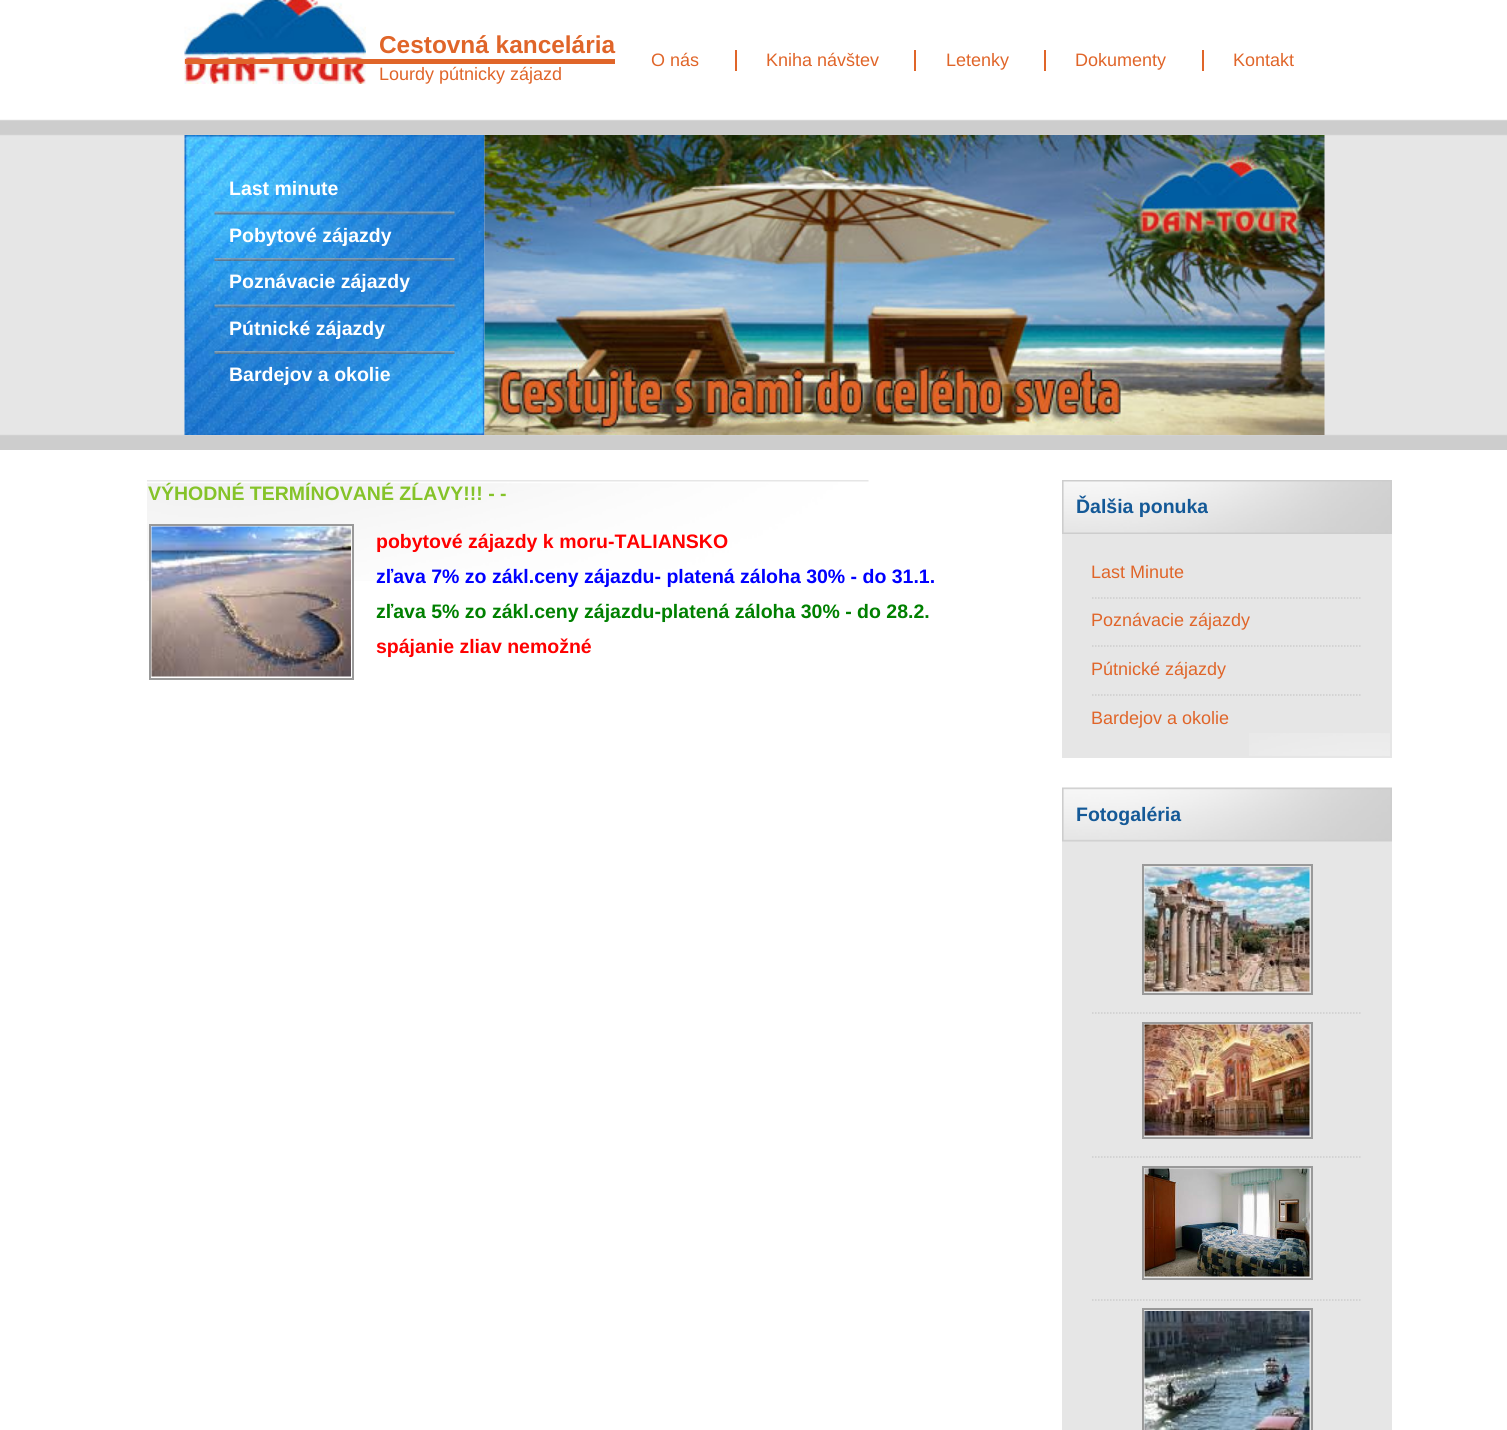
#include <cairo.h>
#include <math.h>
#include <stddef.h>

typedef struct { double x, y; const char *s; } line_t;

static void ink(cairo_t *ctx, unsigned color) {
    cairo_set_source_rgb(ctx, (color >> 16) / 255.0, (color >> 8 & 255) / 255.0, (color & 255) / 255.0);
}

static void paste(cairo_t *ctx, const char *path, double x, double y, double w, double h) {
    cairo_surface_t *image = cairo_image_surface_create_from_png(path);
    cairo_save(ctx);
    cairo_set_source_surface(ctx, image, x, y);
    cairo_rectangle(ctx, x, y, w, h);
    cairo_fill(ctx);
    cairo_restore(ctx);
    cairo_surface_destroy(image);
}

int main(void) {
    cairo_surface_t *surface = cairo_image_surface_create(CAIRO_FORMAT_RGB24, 1507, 1430);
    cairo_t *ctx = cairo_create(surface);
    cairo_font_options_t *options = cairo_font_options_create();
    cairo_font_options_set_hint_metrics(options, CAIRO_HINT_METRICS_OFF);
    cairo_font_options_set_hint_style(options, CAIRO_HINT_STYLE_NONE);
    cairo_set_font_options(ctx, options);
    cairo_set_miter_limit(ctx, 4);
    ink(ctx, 0xFFFFFF);
    cairo_paint(ctx);
    paste(ctx, "media/1.png", 0, 119, 1507, 331);
    paste(ctx, "media/2.png", 184, 0, 182, 84);
    ink(ctx, 0xE06529);
    cairo_rectangle(ctx, 185, 59, 430, 5);
    cairo_fill(ctx);
    cairo_select_font_face(ctx, "Liberation Sans", CAIRO_FONT_SLANT_NORMAL, CAIRO_FONT_WEIGHT_BOLD);
    cairo_set_font_size(ctx, 24.4);
    cairo_move_to(ctx, 379, 53);
    cairo_show_text(ctx, "Cestovná kancelária");
    cairo_select_font_face(ctx, "Liberation Sans", CAIRO_FONT_SLANT_NORMAL, CAIRO_FONT_WEIGHT_NORMAL);
    cairo_set_font_size(ctx, 18);
    {
        static const line_t items[] = {
            {379, 80, "Lourdy pútnicky zájazd"},
            {651, 66, "O nás"},
            {766, 66, "Kniha návštev"},
        };
        for (size_t i = 0; i < sizeof items / sizeof *items; i++) {
            cairo_move_to(ctx, items[i].x, items[i].y);
            cairo_show_text(ctx, items[i].s);
        }
    }
    cairo_rectangle(ctx, 735, 50, 2, 21);
    cairo_fill(ctx);
    cairo_move_to(ctx, 946, 66);
    cairo_show_text(ctx, "Letenky");
    cairo_rectangle(ctx, 914, 50, 2, 21);
    cairo_fill(ctx);
    cairo_move_to(ctx, 1075, 66);
    cairo_show_text(ctx, "Dokumenty");
    cairo_rectangle(ctx, 1044, 50, 2, 21);
    cairo_fill(ctx);
    cairo_move_to(ctx, 1233, 66);
    cairo_show_text(ctx, "Kontakt");
    cairo_rectangle(ctx, 1202, 50, 2, 21);
    cairo_fill(ctx);
    paste(ctx, "media/3.png", 184, 135, 301, 300);
    cairo_select_font_face(ctx, "Liberation Sans", CAIRO_FONT_SLANT_NORMAL, CAIRO_FONT_WEIGHT_BOLD);
    cairo_set_font_size(ctx, 19.5);
    ink(ctx, 0xFFFFFF);
    cairo_move_to(ctx, 229, 195);
    cairo_show_text(ctx, "Last minute");
    paste(ctx, "media/4.png", 214, 211, 241, 4);
    cairo_move_to(ctx, 229, 242);
    cairo_show_text(ctx, "Pobytové zájazdy");
    paste(ctx, "media/5.png", 214, 258, 241, 3);
    cairo_move_to(ctx, 229, 288);
    cairo_show_text(ctx, "Poznávacie zájazdy");
    paste(ctx, "media/6.png", 214, 304, 241, 4);
    cairo_move_to(ctx, 229, 335);
    cairo_show_text(ctx, "Pútnické zájazdy");
    paste(ctx, "media/7.png", 214, 351, 241, 3);
    cairo_move_to(ctx, 229, 381);
    cairo_show_text(ctx, "Bardejov a okolie");
    paste(ctx, "media/8.png", 484, 135, 841, 300);
    paste(ctx, "media/9.png", 147, 480, 722, 101);
    ink(ctx, 0x85C329);
    cairo_move_to(ctx, 148, 500);
    cairo_show_text(ctx, "VÝHODNÉ TERMÍNOVANÉ ZĹAVY!!! - -");
    cairo_rectangle(ctx, 150, 525, 203, 154);
    ink(ctx, 0x999999);
    cairo_stroke(ctx);
    paste(ctx, "media/10.png", 151, 526, 200, 151);
    ink(ctx, 0xFF0000);
    cairo_move_to(ctx, 376, 548);
    cairo_show_text(ctx, "pobytové zájazdy k moru-TALIANSKO");
    ink(ctx, 0x0000FF);
    cairo_move_to(ctx, 376, 583);
    cairo_show_text(ctx, "zľava 7% zo zákl.ceny zájazdu- platená záloha 30% - do 31.1.");
    ink(ctx, 0x008000);
    cairo_move_to(ctx, 376, 618);
    cairo_show_text(ctx, "zľava 5% zo zákl.ceny zájazdu-platená záloha 30% - do 28.2.");
    ink(ctx, 0xFF0000);
    cairo_move_to(ctx, 376, 653);
    cairo_show_text(ctx, "spájanie zliav nemožné");
    ink(ctx, 0xE6E6E6);
    cairo_rectangle(ctx, 1062, 534, 330, 224);
    cairo_fill(ctx);
    paste(ctx, "media/11.png", 1249, 733, 141, 23);
    paste(ctx, "media/12.png", 1062, 480, 330, 54);
    ink(ctx, 0x145997);
    cairo_move_to(ctx, 1076, 513);
    cairo_show_text(ctx, "Ďalšia ponuka");
    cairo_select_font_face(ctx, "Liberation Sans", CAIRO_FONT_SLANT_NORMAL, CAIRO_FONT_WEIGHT_NORMAL);
    cairo_set_font_size(ctx, 18);
    ink(ctx, 0xE06529);
    cairo_move_to(ctx, 1091, 578);
    cairo_show_text(ctx, "Last Minute");
    cairo_new_path(ctx);
    cairo_move_to(ctx, 1092, 598);
    cairo_line_to(ctx, 1362, 598);
    ink(ctx, 0xCDCDCD);
    cairo_set_line_width(ctx, 1.5);
    cairo_set_dash(ctx, (double[]){1.5, 1.5}, 2, 0);
    cairo_stroke(ctx);
    ink(ctx, 0xE06529);
    cairo_move_to(ctx, 1091, 626);
    cairo_show_text(ctx, "Poznávacie zájazdy");
    cairo_new_path(ctx);
    cairo_move_to(ctx, 1092, 646);
    cairo_line_to(ctx, 1362, 646);
    ink(ctx, 0xCDCDCD);
    cairo_stroke(ctx);
    ink(ctx, 0xE06529);
    cairo_move_to(ctx, 1091, 675);
    cairo_show_text(ctx, "Pútnické zájazdy");
    cairo_new_path(ctx);
    cairo_move_to(ctx, 1092, 695);
    cairo_line_to(ctx, 1362, 695);
    ink(ctx, 0xCDCDCD);
    cairo_stroke(ctx);
    ink(ctx, 0xE06529);
    cairo_move_to(ctx, 1091, 724);
    cairo_show_text(ctx, "Bardejov a okolie");
    ink(ctx, 0xE6E6E6);
    cairo_rectangle(ctx, 1062, 841, 330, 589);
    cairo_fill(ctx);
    paste(ctx, "media/13.png", 1062, 787, 330, 55);
    cairo_select_font_face(ctx, "Liberation Sans", CAIRO_FONT_SLANT_NORMAL, CAIRO_FONT_WEIGHT_BOLD);
    cairo_set_font_size(ctx, 19.5);
    ink(ctx, 0x145997);
    cairo_move_to(ctx, 1076, 821);
    cairo_show_text(ctx, "Fotogaléria");
    cairo_rectangle(ctx, 1143, 865, 169, 129);
    ink(ctx, 0x999999);
    cairo_set_line_width(ctx, 2);
    cairo_set_dash(ctx, NULL, 0, 0);
    cairo_stroke(ctx);
    paste(ctx, "media/14.png", 1144, 867, 166, 125);
    cairo_new_path(ctx);
    cairo_move_to(ctx, 1092, 1013);
    cairo_line_to(ctx, 1362, 1013);
    ink(ctx, 0xCDCDCD);
    cairo_set_line_width(ctx, 1.5);
    cairo_set_dash(ctx, (double[]){1.5, 1.5}, 2, 0);
    cairo_stroke(ctx);
    cairo_rectangle(ctx, 1143, 1023, 169, 115);
    ink(ctx, 0x999999);
    cairo_set_line_width(ctx, 2);
    cairo_set_dash(ctx, NULL, 0, 0);
    cairo_stroke(ctx);
    paste(ctx, "media/15.png", 1144, 1024, 166, 112);
    cairo_new_path(ctx);
    cairo_move_to(ctx, 1092, 1157);
    cairo_line_to(ctx, 1362, 1157);
    ink(ctx, 0xCDCDCD);
    cairo_set_line_width(ctx, 1.5);
    cairo_set_dash(ctx, (double[]){1.5, 1.5}, 2, 0);
    cairo_stroke(ctx);
    cairo_rectangle(ctx, 1143, 1167, 169, 112);
    ink(ctx, 0x999999);
    cairo_set_line_width(ctx, 2);
    cairo_set_dash(ctx, NULL, 0, 0);
    cairo_stroke(ctx);
    paste(ctx, "media/16.png", 1144, 1168, 166, 109);
    cairo_new_path(ctx);
    cairo_move_to(ctx, 1092, 1300);
    cairo_line_to(ctx, 1362, 1300);
    ink(ctx, 0xCDCDCD);
    cairo_set_line_width(ctx, 1.5);
    cairo_set_dash(ctx, (double[]){1.5, 1.5}, 2, 0);
    cairo_stroke(ctx);
    cairo_rectangle(ctx, 1143, 1309, 169, 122);
    ink(ctx, 0x999999);
    cairo_set_line_width(ctx, 2);
    cairo_set_dash(ctx, NULL, 0, 0);
    cairo_stroke(ctx);
    paste(ctx, "media/17.png", 1144, 1311, 166, 119);
    cairo_surface_write_to_png(surface, "image.png");
    cairo_font_options_destroy(options);
    cairo_destroy(ctx);
    cairo_surface_destroy(surface);
    return 0;
}
